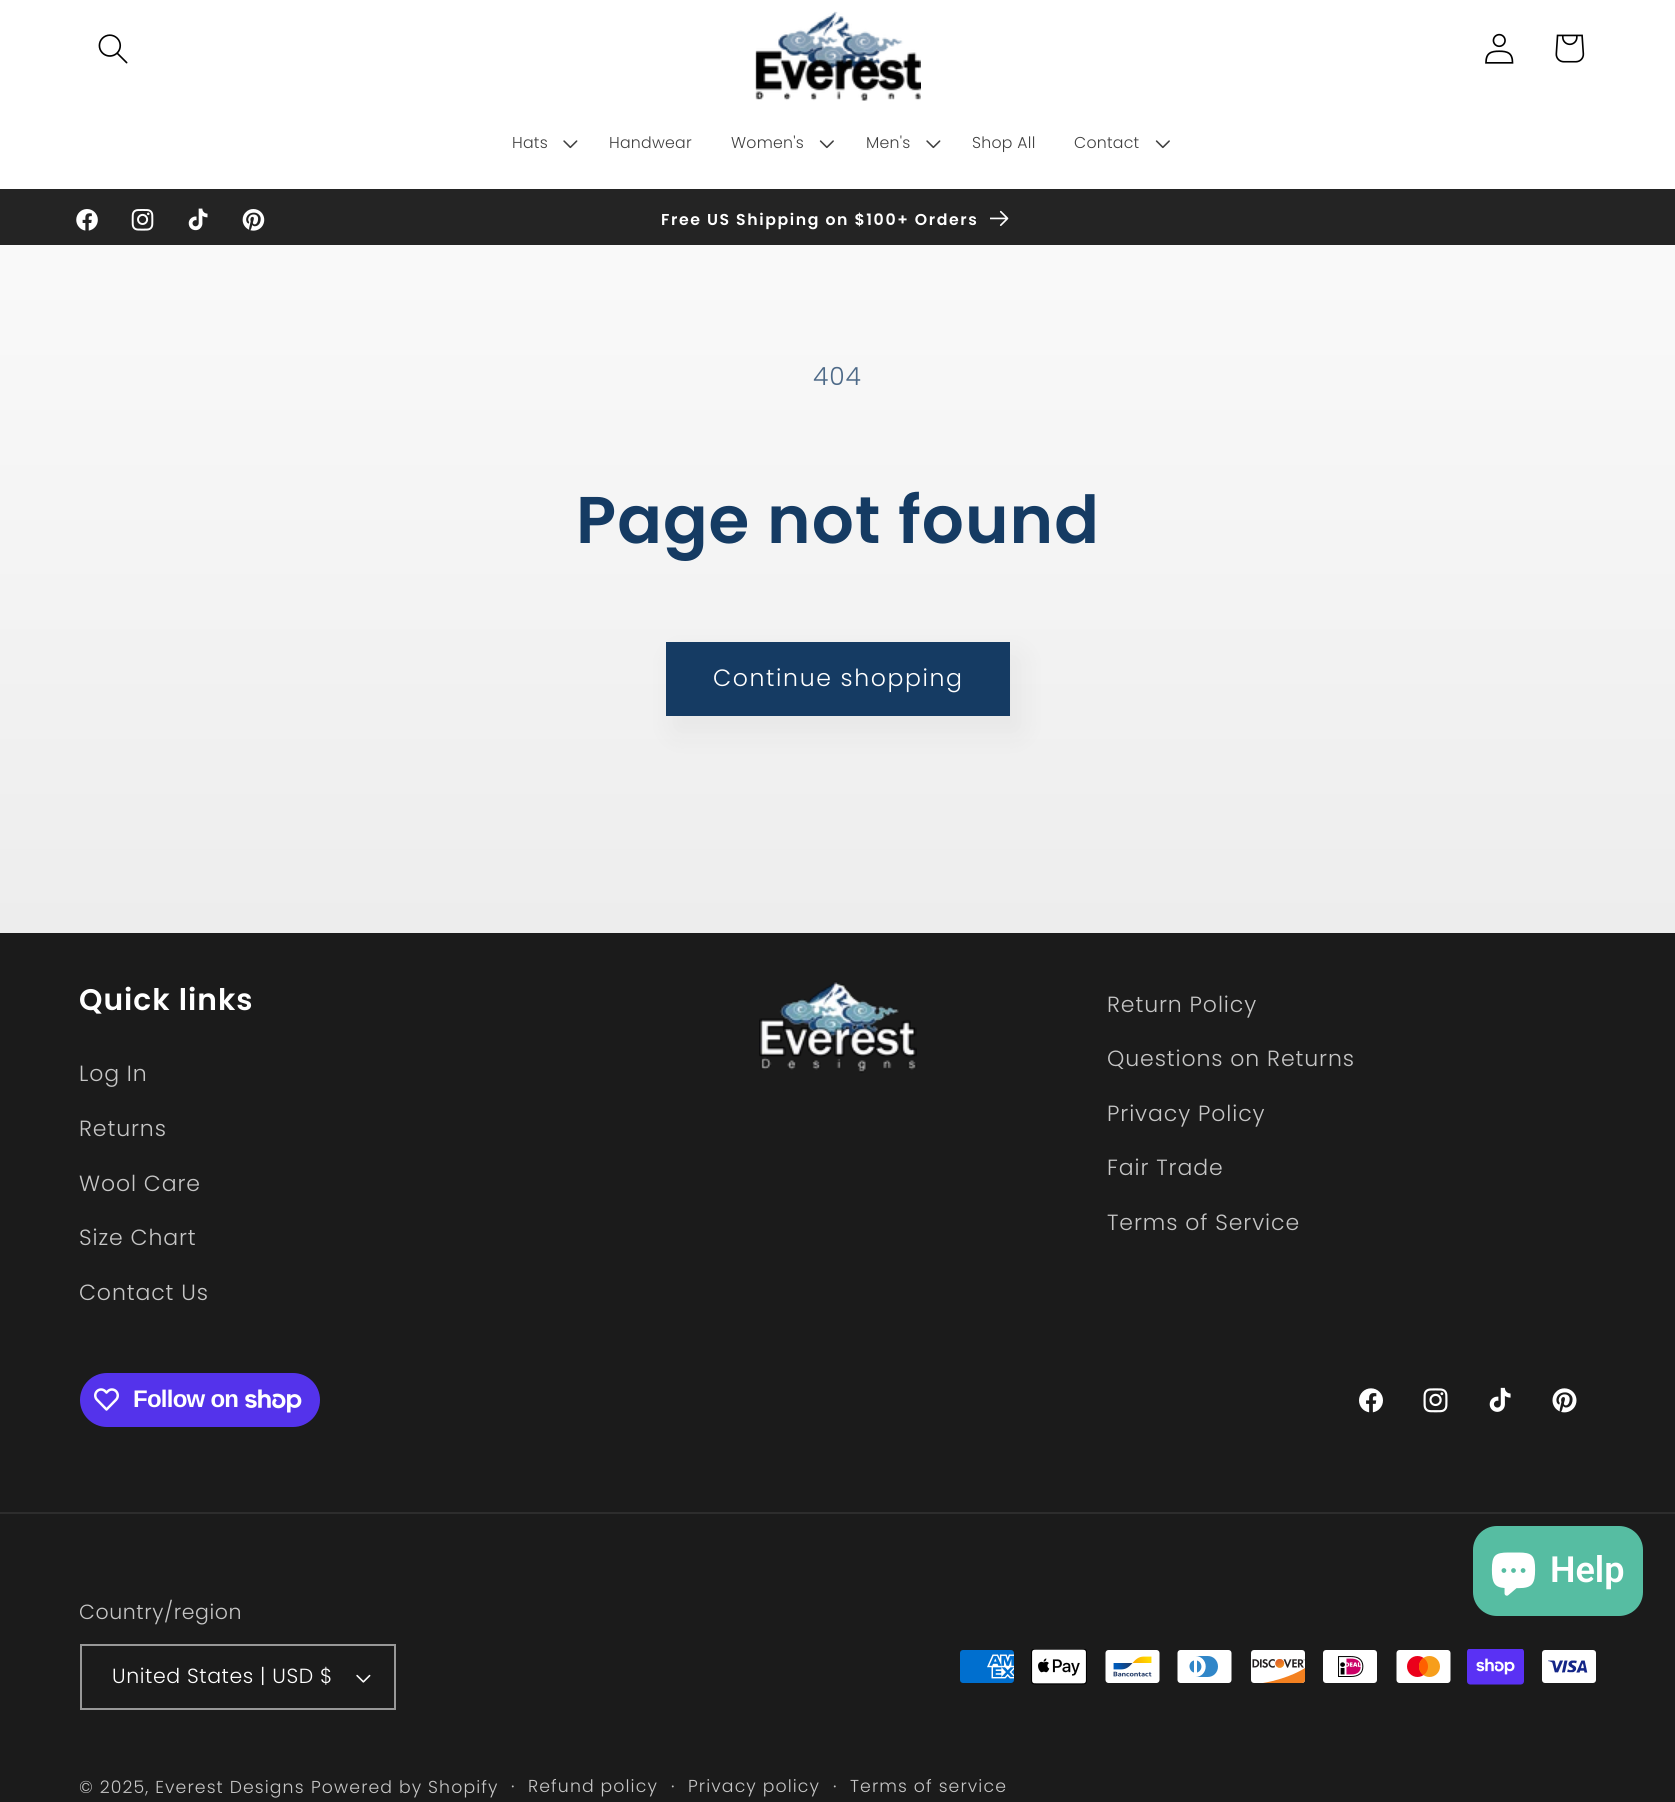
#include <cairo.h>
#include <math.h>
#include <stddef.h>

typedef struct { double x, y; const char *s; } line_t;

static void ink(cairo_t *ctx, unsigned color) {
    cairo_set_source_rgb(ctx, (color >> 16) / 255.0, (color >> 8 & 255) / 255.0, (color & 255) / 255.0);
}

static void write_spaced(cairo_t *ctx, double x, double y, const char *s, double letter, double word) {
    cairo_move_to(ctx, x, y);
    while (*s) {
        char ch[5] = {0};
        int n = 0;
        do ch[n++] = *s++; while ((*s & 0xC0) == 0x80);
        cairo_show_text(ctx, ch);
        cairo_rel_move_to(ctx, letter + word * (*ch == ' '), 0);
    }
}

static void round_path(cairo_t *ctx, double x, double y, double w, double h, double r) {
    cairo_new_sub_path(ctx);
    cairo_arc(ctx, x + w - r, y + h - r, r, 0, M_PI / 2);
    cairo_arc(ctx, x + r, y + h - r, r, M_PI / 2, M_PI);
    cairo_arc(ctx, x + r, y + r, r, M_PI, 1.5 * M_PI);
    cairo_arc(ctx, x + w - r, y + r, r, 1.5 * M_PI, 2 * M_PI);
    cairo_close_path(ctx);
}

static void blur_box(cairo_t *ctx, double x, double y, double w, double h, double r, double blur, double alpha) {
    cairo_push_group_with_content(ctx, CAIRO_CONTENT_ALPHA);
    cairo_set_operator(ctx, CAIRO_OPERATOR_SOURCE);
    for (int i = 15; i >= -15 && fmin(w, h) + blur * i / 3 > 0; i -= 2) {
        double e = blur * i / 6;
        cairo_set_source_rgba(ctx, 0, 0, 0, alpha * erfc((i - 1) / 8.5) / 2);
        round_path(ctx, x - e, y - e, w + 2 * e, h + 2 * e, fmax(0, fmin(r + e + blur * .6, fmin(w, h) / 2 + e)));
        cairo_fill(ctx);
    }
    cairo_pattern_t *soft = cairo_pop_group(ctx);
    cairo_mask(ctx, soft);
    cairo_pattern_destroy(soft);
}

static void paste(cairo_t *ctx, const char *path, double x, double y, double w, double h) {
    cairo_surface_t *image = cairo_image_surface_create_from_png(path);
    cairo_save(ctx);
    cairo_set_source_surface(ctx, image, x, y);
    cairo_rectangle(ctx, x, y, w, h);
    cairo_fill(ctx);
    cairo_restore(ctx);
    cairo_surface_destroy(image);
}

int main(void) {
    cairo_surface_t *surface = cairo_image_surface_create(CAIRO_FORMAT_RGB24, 1675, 1802);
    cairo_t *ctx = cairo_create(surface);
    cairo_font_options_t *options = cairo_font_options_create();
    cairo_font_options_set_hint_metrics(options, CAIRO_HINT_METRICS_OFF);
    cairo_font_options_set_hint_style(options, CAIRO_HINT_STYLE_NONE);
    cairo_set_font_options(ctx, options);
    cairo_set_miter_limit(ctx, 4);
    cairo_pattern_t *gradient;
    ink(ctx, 0xFFFFFF);
    cairo_paint(ctx);
    gradient = cairo_pattern_create_linear(838, 0, 838, 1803);
    cairo_pattern_add_color_stop_rgba(gradient, 0, 0.996, 0.996, 0.996, 1);
    cairo_pattern_add_color_stop_rgba(gradient, 1, 0.867, 0.867, 0.867, 1);
    cairo_set_source(ctx, gradient);
    cairo_pattern_destroy(gradient);
    cairo_rectangle(ctx, 0, 245, 1675, 688);
    cairo_fill(ctx);
    paste(ctx, "media/1.png", 98, 34, 30, 30);
    paste(ctx, "media/2.png", 755, 11, 166, 90);
    paste(ctx, "media/3.png", 1485, 33, 29, 31);
    paste(ctx, "media/4.png", 1555, 34, 30, 29);
    cairo_select_font_face(ctx, "Poppins Light", CAIRO_FONT_SLANT_NORMAL, CAIRO_FONT_WEIGHT_NORMAL);
    cairo_set_font_size(ctx, 15.75);
    ink(ctx, 0x404040);
    write_spaced(ctx, 512, 148, "Hats", 0.25, 0);
    paste(ctx, "media/5.png", 563, 140, 15, 9);
    write_spaced(ctx, 609, 148, "Handwear", 0.25, 0);
    write_spaced(ctx, 731, 148, "Women's", 0.25, 0);
    paste(ctx, "media/6.png", 819, 140, 15, 9);
    write_spaced(ctx, 866, 148, "Men's", 0.25, 0);
    paste(ctx, "media/5.png", 926, 140, 15, 9);
    write_spaced(ctx, 972, 148, "Shop All", 0.25, 0);
    write_spaced(ctx, 1074, 148, "Contact", 0.25, 0);
    paste(ctx, "media/6.png", 1155, 140, 15, 9);
    ink(ctx, 0x242424);
    cairo_rectangle(ctx, 0, 189, 1675, 56);
    cairo_fill(ctx);
    paste(ctx, "media/7.png", 76, 209, 22, 22);
    paste(ctx, "media/8.png", 131, 209, 23, 22);
    paste(ctx, "media/9.png", 188, 208, 20, 23);
    paste(ctx, "media/10.png", 242, 209, 23, 22);
    cairo_select_font_face(ctx, "Poppins SemiBold", CAIRO_FONT_SLANT_NORMAL, CAIRO_FONT_WEIGHT_NORMAL);
    ink(ctx, 0xFFFFFF);
    write_spaced(ctx, 661, 225, "Free US Shipping on $100+ Orders", 1.6, 0);
    paste(ctx, "media/11.png", 990, 210, 19, 16);
    cairo_select_font_face(ctx, "Poppins Light", CAIRO_FONT_SLANT_NORMAL, CAIRO_FONT_WEIGHT_NORMAL);
    cairo_set_font_size(ctx, 25);
    ink(ctx, 0x4E6A88);
    write_spaced(ctx, 813, 385, "404", 0.9, 0);
    cairo_select_font_face(ctx, "Poppins SemiBold", CAIRO_FONT_SLANT_NORMAL, CAIRO_FONT_WEIGHT_NORMAL);
    cairo_set_font_size(ctx, 66);
    ink(ctx, 0x153B63);
    write_spaced(ctx, 576, 543, "Page not found", 1, 0);
    ink(ctx, 0x121212);
    blur_box(ctx, 675, 657, 344, 74, 0, 15, 0.05);
    ink(ctx, 0x153B63);
    cairo_rectangle(ctx, 666, 642, 344, 74);
    cairo_fill(ctx);
    cairo_select_font_face(ctx, "Poppins Light", CAIRO_FONT_SLANT_NORMAL, CAIRO_FONT_WEIGHT_NORMAL);
    cairo_set_font_size(ctx, 23.6);
    ink(ctx, 0xFFFFFF);
    write_spaced(ctx, 713, 686, "Continue shopping", 1.6, 0);
    ink(ctx, 0x1B1B1B);
    cairo_rectangle(ctx, 0, 933, 1675, 869);
    cairo_fill(ctx);
    cairo_select_font_face(ctx, "Poppins SemiBold", CAIRO_FONT_SLANT_NORMAL, CAIRO_FONT_WEIGHT_NORMAL);
    cairo_set_font_size(ctx, 29.75);
    ink(ctx, 0xFFFFFF);
    write_spaced(ctx, 79, 1010, "Quick links", 1, 0);
    cairo_select_font_face(ctx, "Poppins Light", CAIRO_FONT_SLANT_NORMAL, CAIRO_FONT_WEIGHT_NORMAL);
    cairo_set_font_size(ctx, 22);
    ink(ctx, 0xC6C6C6);
    {
        static const line_t items[] = {
            {79, 1081, "Log In"},
            {79, 1136, "Returns"},
            {79, 1191, "Wool Care"},
            {79, 1245, "Size Chart"},
            {79, 1300, "Contact Us"},
        };
        for (size_t i = 0; i < sizeof items / sizeof *items; i++) {
            write_spaced(ctx, items[i].x, items[i].y, items[i].s, 0.9, 0);
        }
    }
    paste(ctx, "media/12.png", 759, 981, 158, 92);
    {
        static const line_t items[] = {
            {1107, 1012, "Return Policy"},
            {1107, 1066, "Questions on Returns"},
            {1107, 1121, "Privacy Policy"},
            {1107, 1175, "Fair Trade"},
            {1107, 1230, "Terms of Service"},
        };
        for (size_t i = 0; i < sizeof items / sizeof *items; i++) {
            write_spaced(ctx, items[i].x, items[i].y, items[i].s, 0.9, 0);
        }
    }
    ink(ctx, 0x5433EB);
    round_path(ctx, 80, 1373, 240, 54, 27);
    cairo_fill(ctx);
    paste(ctx, "media/13.png", 94, 1388, 25, 23);
    cairo_select_font_face(ctx, "Liberation Sans", CAIRO_FONT_SLANT_NORMAL, CAIRO_FONT_WEIGHT_BOLD);
    cairo_set_font_size(ctx, 24);
    ink(ctx, 0xFFFFFF);
    write_spaced(ctx, 133, 1407, "Follow on", -0.75, 0);
    paste(ctx, "media/14.png", 245, 1389, 57, 24);
    paste(ctx, "media/15.png", 1359, 1388, 24, 25);
    paste(ctx, "media/16.png", 1423, 1388, 25, 25);
    paste(ctx, "media/17.png", 1489, 1387, 22, 25);
    paste(ctx, "media/18.png", 1552, 1388, 25, 25);
    ink(ctx, 0x2D2D2D);
    cairo_rectangle(ctx, 0, 1512, 1675, 2);
    cairo_fill(ctx);
    cairo_select_font_face(ctx, "Poppins Light", CAIRO_FONT_SLANT_NORMAL, CAIRO_FONT_WEIGHT_NORMAL);
    cairo_set_font_size(ctx, 20.5);
    ink(ctx, 0xC6C6C6);
    write_spaced(ctx, 79, 1619, "Country/region", 0.6, 0);
    paste(ctx, "media/19.png", 356, 1674, 15, 9);
    cairo_rectangle(ctx, 81, 1645, 314, 64);
    ink(ctx, 0x989898);
    cairo_stroke(ctx);
    ink(ctx, 0xFFFFFF);
    write_spaced(ctx, 112, 1683, "United States | USD $", 0.6, 0);
    paste(ctx, "media/20.png", 960, 1650, 54, 33);
    paste(ctx, "media/21.png", 1031, 1649, 56, 36);
    paste(ctx, "media/22.png", 1105, 1650, 55, 33);
    paste(ctx, "media/23.png", 1177, 1650, 55, 33);
    paste(ctx, "media/24.png", 1251, 1650, 55, 33);
    paste(ctx, "media/25.png", 1323, 1650, 54, 33);
    paste(ctx, "media/26.png", 1396, 1650, 55, 33);
    paste(ctx, "media/27.png", 1467, 1649, 57, 36);
    paste(ctx, "media/28.png", 1542, 1650, 54, 33);
    cairo_set_font_size(ctx, 17.3);
    ink(ctx, 0xC6C6C6);
    write_spaced(ctx, 79, 1793, "© 2025, Everest Designs", 1.1, 0);
    write_spaced(ctx, 311, 1793, "Powered by Shopify", 1.1, 0);
    cairo_set_font_size(ctx, 19);
    write_spaced(ctx, 511, 1793, "·", 1.1, 0);
    cairo_set_font_size(ctx, 17.3);
    write_spaced(ctx, 528, 1792, "Refund policy", 1.1, 0);
    cairo_set_font_size(ctx, 19);
    write_spaced(ctx, 671, 1793, "·", 1.1, 0);
    cairo_set_font_size(ctx, 17.3);
    write_spaced(ctx, 688, 1792, "Privacy policy", 1.1, 0);
    cairo_set_font_size(ctx, 19);
    write_spaced(ctx, 833, 1793, "·", 1.1, 0);
    cairo_set_font_size(ctx, 17.3);
    write_spaced(ctx, 850, 1792, "Terms of service", 1.1, 0);
    ink(ctx, 0x56BDA2);
    round_path(ctx, 1473, 1526, 170, 90, 24);
    cairo_fill(ctx);
    paste(ctx, "media/29.png", 1491, 1552, 45, 44);
    cairo_select_font_face(ctx, "Roboto SemiBold", CAIRO_FONT_SLANT_NORMAL, CAIRO_FONT_WEIGHT_NORMAL);
    cairo_set_font_size(ctx, 36);
    ink(ctx, 0xFFFFFF);
    cairo_move_to(ctx, 1550, 1582);
    cairo_show_text(ctx, "Help");
    cairo_surface_write_to_png(surface, "image.png");
    cairo_font_options_destroy(options);
    cairo_destroy(ctx);
    cairo_surface_destroy(surface);
    return 0;
}
